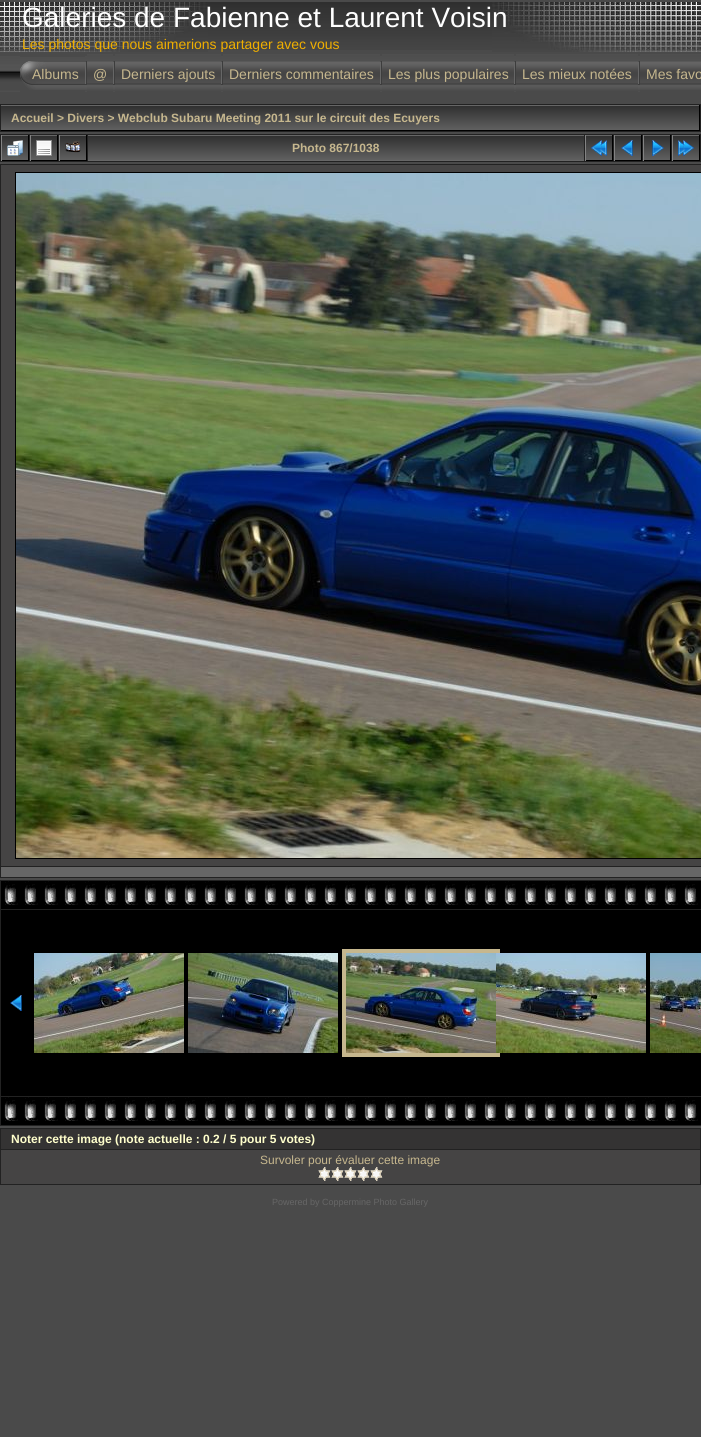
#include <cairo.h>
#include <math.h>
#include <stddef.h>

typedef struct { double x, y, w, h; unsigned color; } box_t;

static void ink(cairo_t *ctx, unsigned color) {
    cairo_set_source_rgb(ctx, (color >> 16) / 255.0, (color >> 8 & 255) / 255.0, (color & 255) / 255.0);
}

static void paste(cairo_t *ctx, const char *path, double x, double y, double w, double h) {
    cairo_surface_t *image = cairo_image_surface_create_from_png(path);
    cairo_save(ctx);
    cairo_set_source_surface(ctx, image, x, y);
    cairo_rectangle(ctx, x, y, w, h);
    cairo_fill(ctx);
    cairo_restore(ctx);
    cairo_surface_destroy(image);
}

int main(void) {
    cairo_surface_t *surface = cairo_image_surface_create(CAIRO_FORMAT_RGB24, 701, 1437);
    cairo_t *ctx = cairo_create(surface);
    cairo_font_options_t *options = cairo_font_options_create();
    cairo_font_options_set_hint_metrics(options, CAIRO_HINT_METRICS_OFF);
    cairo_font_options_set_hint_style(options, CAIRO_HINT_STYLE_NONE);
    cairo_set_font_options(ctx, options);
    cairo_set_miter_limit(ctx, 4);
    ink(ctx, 0x4A4A4A);
    cairo_paint(ctx);
    paste(ctx, "media/1.png", 208, 2, 284, 48);
    paste(ctx, "media/2.png", 0, 2, 208, 50);
    paste(ctx, "media/3.png", 492, 2, 209, 50);
    cairo_select_font_face(ctx, "Liberation Sans", CAIRO_FONT_SLANT_NORMAL, CAIRO_FONT_WEIGHT_NORMAL);
    cairo_set_font_size(ctx, 28);
    ink(ctx, 0xFFFFFF);
    cairo_move_to(ctx, 22, 27);
    cairo_show_text(ctx, "Galeries de Fabienne et Laurent Voisin");
    cairo_set_font_size(ctx, 14);
    ink(ctx, 0xF0AF00);
    cairo_move_to(ctx, 22, 49);
    cairo_show_text(ctx, "Les photos que nous aimerions partager avec vous");
    paste(ctx, "media/4.png", 0, 56, 640, 36);
    ink(ctx, 0x4A4A4A);
    cairo_rectangle(ctx, 20, 56, 65, 36);
    cairo_fill(ctx);
    paste(ctx, "media/5.png", 20, 57, 65, 33);
    ink(ctx, 0xC6B78E);
    cairo_move_to(ctx, 32, 79);
    cairo_show_text(ctx, "Albums");
    paste(ctx, "media/6.png", 85, 61, 2, 29);
    ink(ctx, 0x4A4A4A);
    cairo_rectangle(ctx, 87, 91, 26, 1);
    cairo_fill(ctx);
    paste(ctx, "media/7.png", 87, 54, 26, 36);
    ink(ctx, 0xC6B78E);
    cairo_move_to(ctx, 93, 79);
    cairo_show_text(ctx, "@");
    paste(ctx, "media/6.png", 113, 61, 2, 29);
    ink(ctx, 0x4A4A4A);
    cairo_rectangle(ctx, 115, 91, 106, 1);
    cairo_fill(ctx);
    paste(ctx, "media/8.png", 115, 54, 106, 36);
    ink(ctx, 0xC6B78E);
    cairo_move_to(ctx, 121, 79);
    cairo_show_text(ctx, "Derniers ajouts");
    paste(ctx, "media/6.png", 221, 61, 2, 29);
    ink(ctx, 0x4A4A4A);
    cairo_rectangle(ctx, 223, 91, 157, 1);
    cairo_fill(ctx);
    paste(ctx, "media/9.png", 223, 54, 157, 36);
    ink(ctx, 0xC6B78E);
    cairo_move_to(ctx, 229, 79);
    cairo_show_text(ctx, "Derniers commentaires");
    paste(ctx, "media/6.png", 380, 61, 2, 29);
    ink(ctx, 0x4A4A4A);
    cairo_rectangle(ctx, 382, 91, 132, 1);
    cairo_fill(ctx);
    paste(ctx, "media/10.png", 382, 54, 132, 36);
    ink(ctx, 0xC6B78E);
    cairo_move_to(ctx, 388, 79);
    cairo_show_text(ctx, "Les plus populaires");
    paste(ctx, "media/6.png", 514, 61, 2, 29);
    ink(ctx, 0x4A4A4A);
    cairo_rectangle(ctx, 516, 91, 122, 1);
    cairo_fill(ctx);
    paste(ctx, "media/11.png", 516, 54, 122, 36);
    ink(ctx, 0xC6B78E);
    cairo_move_to(ctx, 522, 79);
    cairo_show_text(ctx, "Les mieux notées");
    paste(ctx, "media/6.png", 638, 61, 2, 29);
    paste(ctx, "media/12.png", 640, 54, 61, 36);
    cairo_move_to(ctx, 646, 79);
    cairo_show_text(ctx, "Mes favo");
    ink(ctx, 0x222222);
    cairo_rectangle(ctx, 0, 104, 701, 28);
    cairo_fill(ctx);
    paste(ctx, "media/13.png", 1, 105, 698, 25);
    ink(ctx, 0x000000);
    cairo_rectangle(ctx, 699, 105, 1, 26);
    cairo_fill(ctx);
    cairo_rectangle(ctx, 1, 130, 699, 1);
    cairo_fill(ctx);
    cairo_select_font_face(ctx, "Liberation Sans", CAIRO_FONT_SLANT_NORMAL, CAIRO_FONT_WEIGHT_BOLD);
    cairo_set_font_size(ctx, 12);
    ink(ctx, 0xC6B78E);
    cairo_move_to(ctx, 11, 122);
    cairo_show_text(ctx, "Accueil > Divers > Webclub Subaru Meeting 2011 sur le circuit des Ecuyers");
    ink(ctx, 0x222222);
    cairo_rectangle(ctx, 0, 134, 701, 28);
    cairo_fill(ctx);
    paste(ctx, "media/14.png", 2, 135, 26, 25);
    {
        static const box_t items[] = {
            {28, 135, 1, 26, 0x000000},
            {1, 160, 28, 1, 0x000000},
            {1, 135, 1, 26, 0x838383},
        };
        for (size_t i = 0; i < sizeof items / sizeof *items; i++) {
            ink(ctx, items[i].color);
            cairo_rectangle(ctx, items[i].x, items[i].y, items[i].w, items[i].h);
            cairo_fill(ctx);
        }
    }
    paste(ctx, "media/15.png", 7, 140, 16, 16);
    paste(ctx, "media/14.png", 31, 135, 26, 25);
    {
        static const box_t items[] = {
            {57, 135, 1, 26, 0x000000},
            {30, 160, 28, 1, 0x000000},
            {30, 135, 1, 26, 0x838383},
        };
        for (size_t i = 0; i < sizeof items / sizeof *items; i++) {
            ink(ctx, items[i].color);
            cairo_rectangle(ctx, items[i].x, items[i].y, items[i].w, items[i].h);
            cairo_fill(ctx);
        }
    }
    paste(ctx, "media/16.png", 36, 140, 16, 16);
    paste(ctx, "media/14.png", 60, 135, 26, 25);
    {
        static const box_t items[] = {
            {86, 135, 1, 26, 0x000000},
            {59, 160, 28, 1, 0x000000},
            {59, 135, 1, 26, 0x838383},
        };
        for (size_t i = 0; i < sizeof items / sizeof *items; i++) {
            ink(ctx, items[i].color);
            cairo_rectangle(ctx, items[i].x, items[i].y, items[i].w, items[i].h);
            cairo_fill(ctx);
        }
    }
    paste(ctx, "media/17.png", 65, 141, 16, 12);
    paste(ctx, "media/18.png", 88, 135, 496, 26);
    ink(ctx, 0xC6B78E);
    cairo_move_to(ctx, 292, 152);
    cairo_show_text(ctx, "Photo 867/1038");
    paste(ctx, "media/14.png", 586, 135, 26, 25);
    {
        static const box_t items[] = {
            {612, 135, 1, 26, 0x000000},
            {585, 160, 28, 1, 0x000000},
            {585, 135, 1, 26, 0x838383},
        };
        for (size_t i = 0; i < sizeof items / sizeof *items; i++) {
            ink(ctx, items[i].color);
            cairo_rectangle(ctx, items[i].x, items[i].y, items[i].w, items[i].h);
            cairo_fill(ctx);
        }
    }
    paste(ctx, "media/19.png", 591, 140, 16, 16);
    paste(ctx, "media/14.png", 615, 135, 26, 25);
    {
        static const box_t items[] = {
            {641, 135, 1, 26, 0x000000},
            {614, 160, 28, 1, 0x000000},
            {614, 135, 1, 26, 0x838383},
        };
        for (size_t i = 0; i < sizeof items / sizeof *items; i++) {
            ink(ctx, items[i].color);
            cairo_rectangle(ctx, items[i].x, items[i].y, items[i].w, items[i].h);
            cairo_fill(ctx);
        }
    }
    paste(ctx, "media/20.png", 621, 140, 12, 16);
    paste(ctx, "media/14.png", 644, 135, 26, 25);
    {
        static const box_t items[] = {
            {670, 135, 1, 26, 0x000000},
            {643, 160, 28, 1, 0x000000},
            {643, 135, 1, 26, 0x838383},
        };
        for (size_t i = 0; i < sizeof items / sizeof *items; i++) {
            ink(ctx, items[i].color);
            cairo_rectangle(ctx, items[i].x, items[i].y, items[i].w, items[i].h);
            cairo_fill(ctx);
        }
    }
    paste(ctx, "media/21.png", 652, 140, 12, 16);
    paste(ctx, "media/14.png", 673, 135, 26, 25);
    {
        static const box_t items[] = {
            {699, 135, 1, 26, 0x000000},
            {672, 160, 28, 1, 0x000000},
            {672, 135, 1, 26, 0x838383},
        };
        for (size_t i = 0; i < sizeof items / sizeof *items; i++) {
            ink(ctx, items[i].color);
            cairo_rectangle(ctx, items[i].x, items[i].y, items[i].w, items[i].h);
            cairo_fill(ctx);
        }
    }
    paste(ctx, "media/22.png", 678, 140, 16, 16);
    ink(ctx, 0x222222);
    cairo_rectangle(ctx, 0, 164, 701, 714);
    cairo_fill(ctx);
    ink(ctx, 0x454444);
    cairo_rectangle(ctx, 1, 165, 700, 701);
    cairo_fill(ctx);
    cairo_rectangle(ctx, 15.5, 172.5, 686, 686);
    ink(ctx, 0x000000);
    cairo_set_line_width(ctx, 1);
    cairo_stroke(ctx);
    paste(ctx, "media/23.png", 16, 173, 685, 685);
    {
        static const box_t items[] = {
            {1, 867, 700, 10, 0x666666},
            {0, 880, 701, 246, 0x222222},
            {1, 881, 700, 28, 0x000000},
        };
        for (size_t i = 0; i < sizeof items / sizeof *items; i++) {
            ink(ctx, items[i].color);
            cairo_rectangle(ctx, items[i].x, items[i].y, items[i].w, items[i].h);
            cairo_fill(ctx);
        }
    }
    paste(ctx, "media/24.png", 4, 881, 694, 24);
    cairo_rectangle(ctx, 1, 910, 700, 186);
    cairo_fill(ctx);
    paste(ctx, "media/25.png", 10, 995, 12, 16);
    paste(ctx, "media/26.png", 34, 953, 150, 100);
    paste(ctx, "media/27.png", 188, 953, 150, 100);
    cairo_rectangle(ctx, 344, 951, 154, 104);
    ink(ctx, 0xC6B78E);
    cairo_set_line_width(ctx, 4);
    cairo_stroke(ctx);
    paste(ctx, "media/28.png", 346, 953, 150, 100);
    paste(ctx, "media/29.png", 496, 953, 150, 100);
    paste(ctx, "media/30.png", 650, 953, 51, 100);
    ink(ctx, 0x000000);
    cairo_rectangle(ctx, 1, 1097, 700, 28);
    cairo_fill(ctx);
    paste(ctx, "media/24.png", 4, 1097, 694, 24);
    ink(ctx, 0x222222);
    cairo_rectangle(ctx, 0, 1128, 701, 57);
    cairo_fill(ctx);
    ink(ctx, 0x343333);
    cairo_rectangle(ctx, 1, 1129, 699, 20);
    cairo_fill(ctx);
    ink(ctx, 0xFFFFCC);
    cairo_move_to(ctx, 11, 1143);
    cairo_show_text(ctx, "Noter cette image (note actuelle : 0.2 / 5 pour 5 votes)");
    ink(ctx, 0x454444);
    cairo_rectangle(ctx, 1, 1150, 699, 34);
    cairo_fill(ctx);
    cairo_select_font_face(ctx, "Liberation Sans", CAIRO_FONT_SLANT_NORMAL, CAIRO_FONT_WEIGHT_NORMAL);
    ink(ctx, 0xC6B78E);
    cairo_move_to(ctx, 260, 1164);
    cairo_show_text(ctx, "Survoler pour évaluer cette image");
    paste(ctx, "media/31.png", 318, 1167, 13, 14);
    paste(ctx, "media/31.png", 331, 1167, 13, 14);
    paste(ctx, "media/31.png", 344, 1167, 13, 14);
    paste(ctx, "media/31.png", 357, 1167, 13, 14);
    paste(ctx, "media/31.png", 370, 1167, 13, 14);
    cairo_set_font_size(ctx, 9);
    ink(ctx, 0x666666);
    cairo_move_to(ctx, 272, 1205);
    cairo_show_text(ctx, "Powered by Coppermine Photo Gallery");
    cairo_surface_write_to_png(surface, "image.png");
    cairo_font_options_destroy(options);
    cairo_destroy(ctx);
    cairo_surface_destroy(surface);
    return 0;
}
